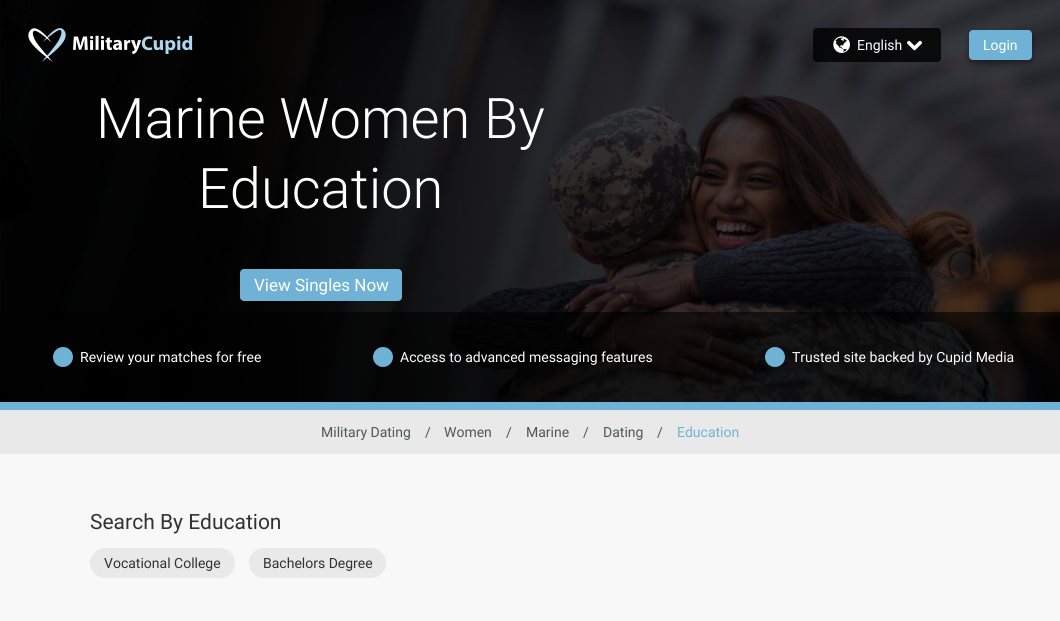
#include <cairo.h>
#include <math.h>
#include <stddef.h>

typedef struct { double x, y; const char *s; } line_t;

static void ink(cairo_t *ctx, unsigned color) {
    cairo_set_source_rgb(ctx, (color >> 16) / 255.0, (color >> 8 & 255) / 255.0, (color & 255) / 255.0);
}

static void round_path(cairo_t *ctx, double x, double y, double w, double h, double r) {
    cairo_new_sub_path(ctx);
    cairo_arc(ctx, x + w - r, y + h - r, r, 0, M_PI / 2);
    cairo_arc(ctx, x + r, y + h - r, r, M_PI / 2, M_PI);
    cairo_arc(ctx, x + r, y + r, r, M_PI, 1.5 * M_PI);
    cairo_arc(ctx, x + w - r, y + r, r, 1.5 * M_PI, 2 * M_PI);
    cairo_close_path(ctx);
}

static void blur_box(cairo_t *ctx, double x, double y, double w, double h, double r, double blur, double alpha) {
    cairo_push_group_with_content(ctx, CAIRO_CONTENT_ALPHA);
    cairo_set_operator(ctx, CAIRO_OPERATOR_SOURCE);
    for (int i = 15; i >= -15 && fmin(w, h) + blur * i / 3 > 0; i -= 2) {
        double e = blur * i / 6;
        cairo_set_source_rgba(ctx, 0, 0, 0, alpha * erfc((i - 1) / 8.5) / 2);
        round_path(ctx, x - e, y - e, w + 2 * e, h + 2 * e, fmax(0, fmin(r + e + blur * .6, fmin(w, h) / 2 + e)));
        cairo_fill(ctx);
    }
    cairo_pattern_t *soft = cairo_pop_group(ctx);
    cairo_mask(ctx, soft);
    cairo_pattern_destroy(soft);
}

static void paste(cairo_t *ctx, const char *path, double x, double y, double w, double h) {
    cairo_surface_t *image = cairo_image_surface_create_from_png(path);
    cairo_save(ctx);
    cairo_set_source_surface(ctx, image, x, y);
    cairo_rectangle(ctx, x, y, w, h);
    cairo_fill(ctx);
    cairo_restore(ctx);
    cairo_surface_destroy(image);
}

int main(void) {
    cairo_surface_t *surface = cairo_image_surface_create(CAIRO_FORMAT_RGB24, 1060, 621);
    cairo_t *ctx = cairo_create(surface);
    cairo_font_options_t *options = cairo_font_options_create();
    cairo_font_options_set_hint_metrics(options, CAIRO_HINT_METRICS_OFF);
    cairo_font_options_set_hint_style(options, CAIRO_HINT_STYLE_NONE);
    cairo_set_font_options(ctx, options);
    cairo_set_miter_limit(ctx, 4);
    ink(ctx, 0xF8F8F8);
    cairo_paint(ctx);
    paste(ctx, "media/5.png", 0, 0, 1060, 402);
    paste(ctx, "media/1.png", 28, 28, 38, 34);
    paste(ctx, "media/2.png", 73, 35, 120, 20);
    cairo_set_source_rgba(ctx, 0, 0, 0, 0.8);
    round_path(ctx, 813, 28, 128, 34, 4);
    cairo_fill(ctx);
    paste(ctx, "media/3.png", 833, 36, 17, 17);
    cairo_select_font_face(ctx, "Roboto", CAIRO_FONT_SLANT_NORMAL, CAIRO_FONT_WEIGHT_NORMAL);
    cairo_set_font_size(ctx, 14);
    ink(ctx, 0xFFFFFF);
    cairo_move_to(ctx, 857, 50);
    cairo_show_text(ctx, "English");
    paste(ctx, "media/4.png", 907, 40, 15, 11);
    ink(ctx, 0x000000);
    blur_box(ctx, 969, 33, 63, 30, 4, 3, 0.4);
    ink(ctx, 0x70B2D5);
    round_path(ctx, 969, 30, 63, 30, 4);
    cairo_fill(ctx);
    ink(ctx, 0xFFFFFF);
    cairo_move_to(ctx, 983, 50);
    cairo_show_text(ctx, "Login");
    cairo_select_font_face(ctx, "Roboto Light", CAIRO_FONT_SLANT_NORMAL, CAIRO_FONT_WEIGHT_NORMAL);
    cairo_set_font_size(ctx, 56);
    cairo_move_to(ctx, 96, 138);
    cairo_show_text(ctx, "Marine Women By");
    cairo_move_to(ctx, 198, 208);
    cairo_show_text(ctx, "Education");
    ink(ctx, 0x70B2D5);
    round_path(ctx, 240, 269, 162, 32, 4);
    cairo_fill(ctx);
    cairo_select_font_face(ctx, "Roboto", CAIRO_FONT_SLANT_NORMAL, CAIRO_FONT_WEIGHT_NORMAL);
    cairo_set_font_size(ctx, 17);
    ink(ctx, 0xFFFFFF);
    cairo_move_to(ctx, 254, 291);
    cairo_show_text(ctx, "View Singles Now");
    cairo_set_source_rgba(ctx, 0, 0, 0, 0.6);
    cairo_rectangle(ctx, 0, 312, 1060, 90);
    cairo_fill(ctx);
    ink(ctx, 0x70B2D5);
    cairo_arc(ctx, 63, 357, 10, 0, 2 * M_PI);
    cairo_fill(ctx);
    cairo_set_font_size(ctx, 14);
    ink(ctx, 0xFFFFFF);
    cairo_move_to(ctx, 80, 362);
    cairo_show_text(ctx, "Review your matches for free");
    ink(ctx, 0x70B2D5);
    cairo_new_path(ctx);
    cairo_arc(ctx, 383, 357, 10, 0, 2 * M_PI);
    cairo_fill(ctx);
    ink(ctx, 0xFFFFFF);
    cairo_move_to(ctx, 400, 362);
    cairo_show_text(ctx, "Access to advanced messaging features");
    ink(ctx, 0x70B2D5);
    cairo_new_path(ctx);
    cairo_arc(ctx, 775, 357, 10, 0, 2 * M_PI);
    cairo_fill(ctx);
    ink(ctx, 0xFFFFFF);
    cairo_move_to(ctx, 792, 362);
    cairo_show_text(ctx, "Trusted site backed by Cupid Media");
    ink(ctx, 0x70B2D5);
    cairo_rectangle(ctx, 0, 402, 1060, 8);
    cairo_fill(ctx);
    ink(ctx, 0xE9E9E9);
    cairo_rectangle(ctx, 0, 410, 1060, 44);
    cairo_fill(ctx);
    ink(ctx, 0x505656);
    {
        static const line_t items[] = {
            {321, 437, "Military Dating"},
            {425, 437, "/"},
            {444, 437, "Women"},
            {506, 437, "/"},
            {526, 437, "Marine"},
            {583, 437, "/"},
            {603, 437, "Dating"},
            {657, 437, "/"},
        };
        for (size_t i = 0; i < sizeof items / sizeof *items; i++) {
            cairo_move_to(ctx, items[i].x, items[i].y);
            cairo_show_text(ctx, items[i].s);
        }
    }
    ink(ctx, 0x70B2D5);
    cairo_move_to(ctx, 677, 437);
    cairo_show_text(ctx, "Education");
    cairo_set_font_size(ctx, 21);
    ink(ctx, 0x323232);
    cairo_move_to(ctx, 90, 529);
    cairo_show_text(ctx, "Search By Education");
    ink(ctx, 0xE9E9E9);
    round_path(ctx, 90, 548, 145, 30, 15);
    cairo_fill(ctx);
    cairo_set_font_size(ctx, 14);
    ink(ctx, 0x323232);
    cairo_move_to(ctx, 104, 568);
    cairo_show_text(ctx, "Vocational College");
    ink(ctx, 0xE9E9E9);
    round_path(ctx, 249, 548, 137, 30, 15);
    cairo_fill(ctx);
    ink(ctx, 0x323232);
    cairo_move_to(ctx, 263, 568);
    cairo_show_text(ctx, "Bachelors Degree");
    cairo_surface_write_to_png(surface, "image.png");
    cairo_font_options_destroy(options);
    cairo_destroy(ctx);
    cairo_surface_destroy(surface);
    return 0;
}
